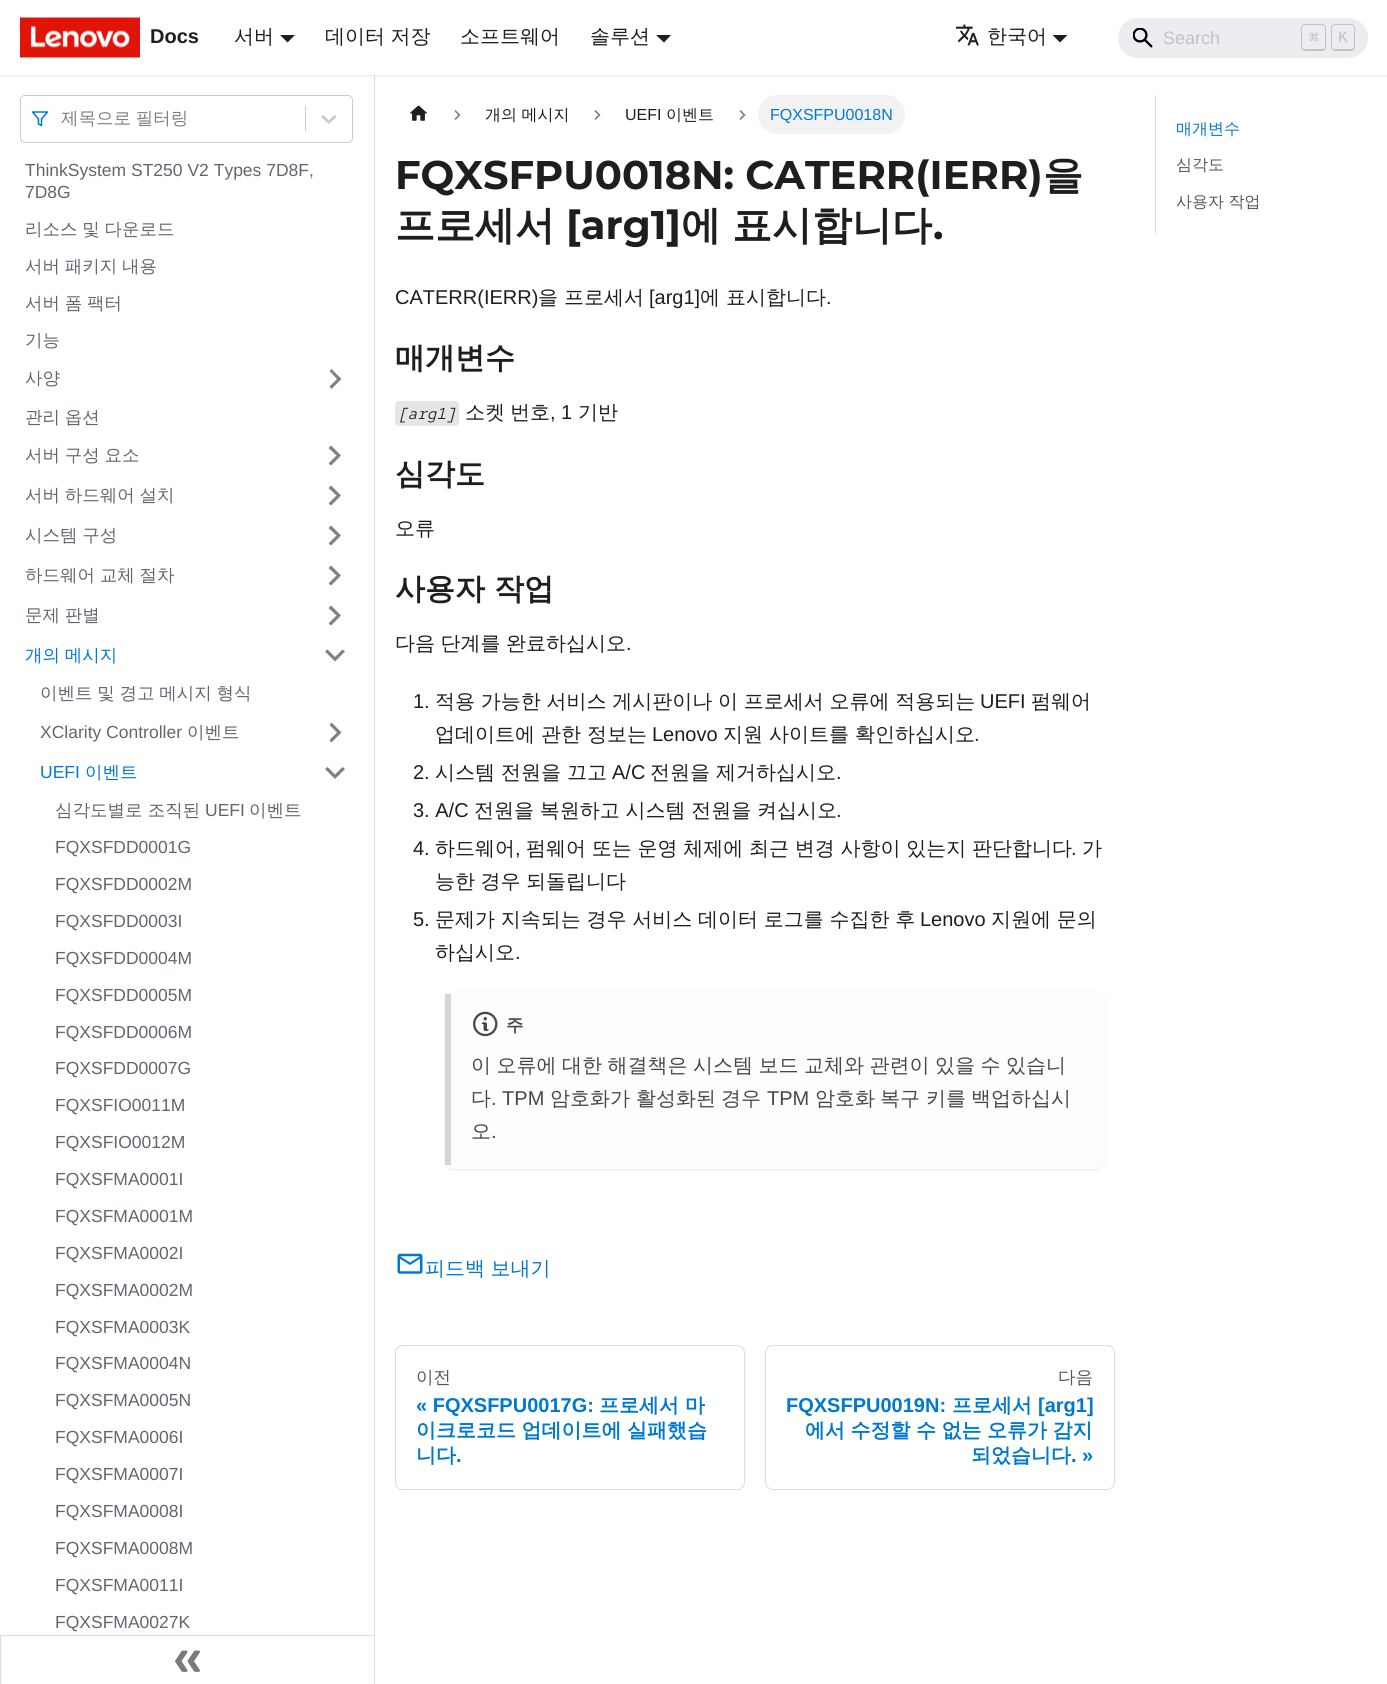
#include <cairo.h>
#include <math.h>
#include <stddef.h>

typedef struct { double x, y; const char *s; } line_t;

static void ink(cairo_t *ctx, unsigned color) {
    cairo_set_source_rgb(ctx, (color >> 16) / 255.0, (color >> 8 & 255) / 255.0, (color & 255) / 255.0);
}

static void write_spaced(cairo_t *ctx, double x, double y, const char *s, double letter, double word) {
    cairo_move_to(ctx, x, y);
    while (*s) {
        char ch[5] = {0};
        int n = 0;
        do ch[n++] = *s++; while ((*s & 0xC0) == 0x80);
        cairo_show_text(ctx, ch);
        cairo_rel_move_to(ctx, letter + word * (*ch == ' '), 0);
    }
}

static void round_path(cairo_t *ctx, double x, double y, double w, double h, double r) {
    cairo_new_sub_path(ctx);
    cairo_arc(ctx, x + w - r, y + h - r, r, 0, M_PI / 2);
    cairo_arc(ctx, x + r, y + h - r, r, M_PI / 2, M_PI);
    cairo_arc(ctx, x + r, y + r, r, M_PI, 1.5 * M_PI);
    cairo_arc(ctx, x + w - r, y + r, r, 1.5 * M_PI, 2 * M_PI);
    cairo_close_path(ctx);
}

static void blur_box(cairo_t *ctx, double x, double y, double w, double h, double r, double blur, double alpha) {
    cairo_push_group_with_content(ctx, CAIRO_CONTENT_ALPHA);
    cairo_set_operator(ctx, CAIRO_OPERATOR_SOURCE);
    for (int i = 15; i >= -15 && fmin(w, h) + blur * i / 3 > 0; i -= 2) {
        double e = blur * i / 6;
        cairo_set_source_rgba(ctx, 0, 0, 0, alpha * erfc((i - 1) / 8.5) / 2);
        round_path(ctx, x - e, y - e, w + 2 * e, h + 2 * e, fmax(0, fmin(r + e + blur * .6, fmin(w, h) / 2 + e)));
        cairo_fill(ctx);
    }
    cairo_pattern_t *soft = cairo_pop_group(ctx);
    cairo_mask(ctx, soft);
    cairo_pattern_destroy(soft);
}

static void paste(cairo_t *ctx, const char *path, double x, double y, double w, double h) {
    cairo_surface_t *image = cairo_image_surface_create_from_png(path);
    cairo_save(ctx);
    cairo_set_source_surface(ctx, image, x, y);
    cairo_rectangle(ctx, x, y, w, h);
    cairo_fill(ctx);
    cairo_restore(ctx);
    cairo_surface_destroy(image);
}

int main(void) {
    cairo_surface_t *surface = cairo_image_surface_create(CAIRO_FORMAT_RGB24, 1387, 1684);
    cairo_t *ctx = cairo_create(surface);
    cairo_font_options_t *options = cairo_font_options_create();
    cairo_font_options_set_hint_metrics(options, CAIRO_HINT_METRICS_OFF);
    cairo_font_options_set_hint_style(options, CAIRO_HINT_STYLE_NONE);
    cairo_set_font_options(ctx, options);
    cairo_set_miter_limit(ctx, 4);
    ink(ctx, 0xFFFFFF);
    cairo_paint(ctx);
    ink(ctx, 0xDADDE1);
    cairo_rectangle(ctx, 374, 75, 1, 1560);
    cairo_fill(ctx);
    ink(ctx, 0x000000);
    blur_box(ctx, 0, 1, 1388, 75, 0, 1, 0.1);
    ink(ctx, 0xFFFFFF);
    cairo_rectangle(ctx, 0, 0, 1387, 75);
    cairo_fill(ctx);
    paste(ctx, "media/1.png", 20, 17, 120, 41);
    cairo_select_font_face(ctx, "Liberation Sans", CAIRO_FONT_SLANT_NORMAL, CAIRO_FONT_WEIGHT_BOLD);
    cairo_set_font_size(ctx, 20);
    ink(ctx, 0x1C1E21);
    cairo_move_to(ctx, 150, 43);
    cairo_show_text(ctx, "Docs");
    cairo_select_font_face(ctx, "WenQuanYi Zen Hei Medium", CAIRO_FONT_SLANT_NORMAL, CAIRO_FONT_WEIGHT_NORMAL);
    cairo_move_to(ctx, 234, 43);
    cairo_show_text(ctx, "서버");
    cairo_new_path(ctx);
    cairo_move_to(ctx, 280, 35);
    cairo_line_to(ctx, 295, 35);
    cairo_line_to(ctx, 287.5, 42.5);
    cairo_close_path(ctx);
    cairo_fill(ctx);
    write_spaced(ctx, 325, 43, "데이터 저장", 0, -0.5);
    cairo_move_to(ctx, 460, 43);
    cairo_show_text(ctx, "소프트웨어");
    cairo_move_to(ctx, 590, 43);
    cairo_show_text(ctx, "솔루션");
    cairo_new_path(ctx);
    cairo_move_to(ctx, 656, 35);
    cairo_line_to(ctx, 671, 35);
    cairo_line_to(ctx, 664, 42.5);
    cairo_close_path(ctx);
    cairo_fill(ctx);
    paste(ctx, "media/2.png", 956, 24, 23, 22);
    cairo_move_to(ctx, 987, 43);
    cairo_show_text(ctx, "한국어");
    cairo_new_path(ctx);
    cairo_move_to(ctx, 1052.5, 35);
    cairo_line_to(ctx, 1067.5, 35);
    cairo_line_to(ctx, 1060, 42.5);
    cairo_close_path(ctx);
    cairo_fill(ctx);
    ink(ctx, 0xEBEDF0);
    round_path(ctx, 1118, 18, 250, 40, 20);
    cairo_fill(ctx);
    paste(ctx, "media/3.png", 1133, 28, 20, 20);
    cairo_select_font_face(ctx, "Liberation Sans", CAIRO_FONT_SLANT_NORMAL, CAIRO_FONT_WEIGHT_NORMAL);
    cairo_set_font_size(ctx, 18);
    ink(ctx, 0xBEC3C9);
    cairo_move_to(ctx, 1163, 44);
    cairo_show_text(ctx, "Search");
    cairo_new_path(ctx);
    cairo_move_to(ctx, 1303, 48);
    cairo_curve_to(ctx, 1304, 51, 1309, 50, 1311, 50);
    cairo_line_to(ctx, 1317, 50);
    cairo_curve_to(ctx, 1321.5, 50, 1325, 51.5, 1325, 46);
    cairo_curve_to(ctx, 1325, 48, 1324, 49, 1322, 49);
    cairo_line_to(ctx, 1305, 49);
    cairo_curve_to(ctx, 1304.5, 49, 1303.5, 48.5, 1303, 48);
    cairo_close_path(ctx);
    cairo_fill(ctx);
    round_path(ctx, 1301.5, 24.5, 24, 26, 3.5);
    cairo_set_line_width(ctx, 1);
    cairo_stroke(ctx);
    cairo_select_font_face(ctx, "DejaVu Sans Mono", CAIRO_FONT_SLANT_NORMAL, CAIRO_FONT_WEIGHT_NORMAL);
    cairo_set_font_size(ctx, 16);
    cairo_move_to(ctx, 1309, 43);
    cairo_show_text(ctx, "⌘");
    cairo_new_path(ctx);
    cairo_move_to(ctx, 1333, 48);
    cairo_curve_to(ctx, 1334, 51, 1339, 50, 1341, 50);
    cairo_line_to(ctx, 1346, 50);
    cairo_curve_to(ctx, 1351, 50, 1354, 51.5, 1354, 46);
    cairo_curve_to(ctx, 1354, 48, 1353, 49, 1351, 49);
    cairo_line_to(ctx, 1335, 49);
    cairo_curve_to(ctx, 1334.5, 49, 1333.5, 48.5, 1333, 48);
    cairo_close_path(ctx);
    cairo_fill(ctx);
    round_path(ctx, 1331.5, 24.5, 23, 26, 3.5);
    cairo_stroke(ctx);
    cairo_select_font_face(ctx, "Liberation Mono", CAIRO_FONT_SLANT_NORMAL, CAIRO_FONT_WEIGHT_NORMAL);
    cairo_move_to(ctx, 1338, 42);
    cairo_show_text(ctx, "K");
    round_path(ctx, 20.5, 95.5, 332, 47, 4.5);
    ink(ctx, 0xCCCCCC);
    cairo_stroke(ctx);
    cairo_new_path(ctx);
    cairo_move_to(ctx, 47.5, 112);
    cairo_line_to(ctx, 32.5, 112);
    cairo_line_to(ctx, 38.5, 119);
    cairo_line_to(ctx, 38.5, 124);
    cairo_line_to(ctx, 41.5, 125.5);
    cairo_line_to(ctx, 41.5, 119);
    cairo_close_path(ctx);
    ink(ctx, 0x0078D0);
    cairo_set_line_width(ctx, 1.5);
    cairo_set_line_cap(ctx, CAIRO_LINE_CAP_ROUND);
    cairo_set_line_join(ctx, CAIRO_LINE_JOIN_ROUND);
    cairo_stroke(ctx);
    cairo_select_font_face(ctx, "WenQuanYi Zen Hei Medium", CAIRO_FONT_SLANT_NORMAL, CAIRO_FONT_WEIGHT_NORMAL);
    cairo_set_font_size(ctx, 17.5);
    ink(ctx, 0x808080);
    write_spaced(ctx, 61, 124, "제목으로 필터링", 0, -0.5);
    ink(ctx, 0xCCCCCC);
    cairo_rectangle(ctx, 305, 106, 1, 25);
    cairo_fill(ctx);
    paste(ctx, "media/4.png", 321, 115, 15, 9);
    cairo_select_font_face(ctx, "Liberation Sans", CAIRO_FONT_SLANT_NORMAL, CAIRO_FONT_WEIGHT_NORMAL);
    ink(ctx, 0x606770);
    cairo_move_to(ctx, 25, 176);
    cairo_show_text(ctx, "ThinkSystem ST250 V2 Types 7D8F,");
    cairo_move_to(ctx, 25, 198);
    cairo_show_text(ctx, "7D8G");
    cairo_select_font_face(ctx, "WenQuanYi Zen Hei Medium", CAIRO_FONT_SLANT_NORMAL, CAIRO_FONT_WEIGHT_NORMAL);
    {
        static const line_t items[] = {
            {25, 235, "리소스 및 다운로드"},
            {25, 272, "서버 패키지 내용"},
            {25, 309, "서버 폼 팩터"},
        };
        for (size_t i = 0; i < sizeof items / sizeof *items; i++) {
            write_spaced(ctx, items[i].x, items[i].y, items[i].s, 0, -0.5);
        }
    }
    cairo_move_to(ctx, 25, 346);
    cairo_show_text(ctx, "기능");
    cairo_move_to(ctx, 25, 384);
    cairo_show_text(ctx, "사양");
    ink(ctx, 0x808080);
    cairo_new_path(ctx);
    cairo_move_to(ctx, 329.5, 371);
    cairo_line_to(ctx, 337, 379);
    cairo_line_to(ctx, 329.5, 386.5);
    cairo_line_to(ctx, 331.5, 389);
    cairo_line_to(ctx, 341.5, 379);
    cairo_line_to(ctx, 331.5, 369);
    cairo_close_path(ctx);
    cairo_fill(ctx);
    ink(ctx, 0x606770);
    write_spaced(ctx, 25, 423, "관리 옵션", 0, -0.5);
    write_spaced(ctx, 25, 461, "서버 구성 요소", 0, -0.5);
    ink(ctx, 0x808080);
    cairo_new_path(ctx);
    cairo_move_to(ctx, 328.5, 448);
    cairo_line_to(ctx, 336.5, 455.5);
    cairo_line_to(ctx, 328.5, 463.5);
    cairo_line_to(ctx, 331, 465.5);
    cairo_line_to(ctx, 341, 455.5);
    cairo_line_to(ctx, 331, 445.5);
    cairo_close_path(ctx);
    cairo_fill(ctx);
    ink(ctx, 0x606770);
    write_spaced(ctx, 25, 501, "서버 하드웨어 설치", 0, -0.5);
    ink(ctx, 0x808080);
    cairo_new_path(ctx);
    cairo_move_to(ctx, 328.5, 488);
    cairo_line_to(ctx, 336.5, 495.5);
    cairo_line_to(ctx, 328.5, 503.5);
    cairo_line_to(ctx, 331, 505.5);
    cairo_line_to(ctx, 341, 495.5);
    cairo_line_to(ctx, 331, 485.5);
    cairo_close_path(ctx);
    cairo_fill(ctx);
    ink(ctx, 0x606770);
    write_spaced(ctx, 25, 541, "시스템 구성", 0, -0.5);
    ink(ctx, 0x808080);
    cairo_new_path(ctx);
    cairo_move_to(ctx, 328.5, 528);
    cairo_line_to(ctx, 336.5, 535.5);
    cairo_line_to(ctx, 328.5, 543.5);
    cairo_line_to(ctx, 331, 545.5);
    cairo_line_to(ctx, 341, 535.5);
    cairo_line_to(ctx, 331, 525.5);
    cairo_close_path(ctx);
    cairo_fill(ctx);
    ink(ctx, 0x606770);
    write_spaced(ctx, 25, 581, "하드웨어 교체 절차", 0, -0.5);
    ink(ctx, 0x808080);
    cairo_new_path(ctx);
    cairo_move_to(ctx, 328.5, 568);
    cairo_line_to(ctx, 336.5, 575.5);
    cairo_line_to(ctx, 328.5, 583.5);
    cairo_line_to(ctx, 331, 585.5);
    cairo_line_to(ctx, 341, 575.5);
    cairo_line_to(ctx, 331, 565.5);
    cairo_close_path(ctx);
    cairo_fill(ctx);
    ink(ctx, 0x606770);
    write_spaced(ctx, 25, 621, "문제 판별", 0, -0.5);
    ink(ctx, 0x808080);
    cairo_new_path(ctx);
    cairo_move_to(ctx, 328.5, 608);
    cairo_line_to(ctx, 336.5, 615.5);
    cairo_line_to(ctx, 328.5, 623.5);
    cairo_line_to(ctx, 331, 625.5);
    cairo_line_to(ctx, 341, 615.5);
    cairo_line_to(ctx, 331, 605.5);
    cairo_close_path(ctx);
    cairo_fill(ctx);
    ink(ctx, 0x0078D0);
    write_spaced(ctx, 25, 661, "개의 메시지", 0, -0.5);
    ink(ctx, 0x808080);
    cairo_new_path(ctx);
    cairo_move_to(ctx, 342.5, 649.5);
    cairo_line_to(ctx, 335, 657);
    cairo_line_to(ctx, 327.5, 649.5);
    cairo_line_to(ctx, 325, 651.5);
    cairo_line_to(ctx, 335, 661.5);
    cairo_line_to(ctx, 345, 651.5);
    cairo_close_path(ctx);
    cairo_fill(ctx);
    ink(ctx, 0x606770);
    write_spaced(ctx, 40, 699, "이벤트 및 경고 메시지 형식", 0, -0.5);
    cairo_select_font_face(ctx, "Liberation Sans", CAIRO_FONT_SLANT_NORMAL, CAIRO_FONT_WEIGHT_NORMAL);
    cairo_move_to(ctx, 40, 738);
    cairo_show_text(ctx, "XClarity Controller");
    cairo_select_font_face(ctx, "WenQuanYi Zen Hei Medium", CAIRO_FONT_SLANT_NORMAL, CAIRO_FONT_WEIGHT_NORMAL);
    cairo_move_to(ctx, 187, 738);
    cairo_show_text(ctx, "이벤트");
    ink(ctx, 0x808080);
    cairo_new_path(ctx);
    cairo_move_to(ctx, 329.5, 725);
    cairo_line_to(ctx, 337, 732.5);
    cairo_line_to(ctx, 329.5, 740);
    cairo_line_to(ctx, 331.5, 742.5);
    cairo_line_to(ctx, 341.5, 732.5);
    cairo_line_to(ctx, 331.5, 722.5);
    cairo_close_path(ctx);
    cairo_fill(ctx);
    cairo_select_font_face(ctx, "Liberation Sans", CAIRO_FONT_SLANT_NORMAL, CAIRO_FONT_WEIGHT_NORMAL);
    ink(ctx, 0x0078D0);
    cairo_move_to(ctx, 40, 778);
    cairo_show_text(ctx, "UEFI");
    cairo_select_font_face(ctx, "WenQuanYi Zen Hei Medium", CAIRO_FONT_SLANT_NORMAL, CAIRO_FONT_WEIGHT_NORMAL);
    cairo_move_to(ctx, 85, 778);
    cairo_show_text(ctx, "이벤트");
    ink(ctx, 0x808080);
    cairo_new_path(ctx);
    cairo_move_to(ctx, 342.5, 767);
    cairo_line_to(ctx, 335, 774.5);
    cairo_line_to(ctx, 327.5, 767);
    cairo_line_to(ctx, 325, 769);
    cairo_line_to(ctx, 335, 779);
    cairo_line_to(ctx, 345, 769);
    cairo_close_path(ctx);
    cairo_fill(ctx);
    ink(ctx, 0x606770);
    cairo_move_to(ctx, 55, 816);
    cairo_show_text(ctx, "심각도별로 조직된");
    cairo_select_font_face(ctx, "Liberation Sans", CAIRO_FONT_SLANT_NORMAL, CAIRO_FONT_WEIGHT_NORMAL);
    cairo_move_to(ctx, 205, 816);
    cairo_show_text(ctx, "UEFI");
    cairo_select_font_face(ctx, "WenQuanYi Zen Hei Medium", CAIRO_FONT_SLANT_NORMAL, CAIRO_FONT_WEIGHT_NORMAL);
    cairo_move_to(ctx, 249, 816);
    cairo_show_text(ctx, "이벤트");
    cairo_select_font_face(ctx, "Liberation Sans", CAIRO_FONT_SLANT_NORMAL, CAIRO_FONT_WEIGHT_NORMAL);
    {
        static const line_t items[] = {
            {55, 853, "FQXSFDD0001G"},
            {55, 890, "FQXSFDD0002M"},
            {55, 927, "FQXSFDD0003I"},
            {55, 964, "FQXSFDD0004M"},
            {55, 1001, "FQXSFDD0005M"},
            {55, 1038, "FQXSFDD0006M"},
            {55, 1074, "FQXSFDD0007G"},
            {55, 1111, "FQXSFIO0011M"},
            {55, 1148, "FQXSFIO0012M"},
            {55, 1185, "FQXSFMA0001I"},
            {55, 1222, "FQXSFMA0001M"},
            {55, 1259, "FQXSFMA0002I"},
            {55, 1296, "FQXSFMA0002M"},
            {55, 1333, "FQXSFMA0003K"},
            {55, 1369, "FQXSFMA0004N"},
            {55, 1406, "FQXSFMA0005N"},
            {55, 1443, "FQXSFMA0006I"},
            {55, 1480, "FQXSFMA0007I"},
            {55, 1517, "FQXSFMA0008I"},
            {55, 1554, "FQXSFMA0008M"},
            {55, 1591, "FQXSFMA0011I"},
            {55, 1628, "FQXSFMA0027K"},
        };
        for (size_t i = 0; i < sizeof items / sizeof *items; i++) {
            cairo_move_to(ctx, items[i].x, items[i].y);
            cairo_show_text(ctx, items[i].s);
        }
    }
    cairo_rectangle(ctx, 0.5, 1635.5, 374, 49);
    ink(ctx, 0xDADDE1);
    cairo_set_line_width(ctx, 1);
    cairo_set_line_cap(ctx, CAIRO_LINE_CAP_BUTT);
    cairo_set_line_join(ctx, CAIRO_LINE_JOIN_MITER);
    cairo_stroke(ctx);
    paste(ctx, "media/5.png", 175, 1650, 25, 22);
    paste(ctx, "media/6.png", 410, 105, 17, 16);
    paste(ctx, "media/7.png", 454, 110, 7, 10);
    cairo_select_font_face(ctx, "WenQuanYi Zen Hei Medium", CAIRO_FONT_SLANT_NORMAL, CAIRO_FONT_WEIGHT_NORMAL);
    cairo_set_font_size(ctx, 16);
    ink(ctx, 0x1C1E21);
    write_spaced(ctx, 485, 120, "개의 메시지", 0, -0.25);
    paste(ctx, "media/7.png", 594, 110, 7, 10);
    cairo_select_font_face(ctx, "Liberation Sans", CAIRO_FONT_SLANT_NORMAL, CAIRO_FONT_WEIGHT_NORMAL);
    cairo_move_to(ctx, 625, 120);
    cairo_show_text(ctx, "UEFI");
    cairo_select_font_face(ctx, "WenQuanYi Zen Hei Medium", CAIRO_FONT_SLANT_NORMAL, CAIRO_FONT_WEIGHT_NORMAL);
    cairo_move_to(ctx, 666, 120);
    cairo_show_text(ctx, "이벤트");
    paste(ctx, "media/7.png", 739, 110, 7, 10);
    ink(ctx, 0xF2F2F2);
    round_path(ctx, 758, 95, 147, 39, 19.5);
    cairo_fill(ctx);
    cairo_select_font_face(ctx, "Liberation Sans", CAIRO_FONT_SLANT_NORMAL, CAIRO_FONT_WEIGHT_NORMAL);
    ink(ctx, 0x0078D0);
    cairo_move_to(ctx, 770, 120);
    cairo_show_text(ctx, "FQXSFPU0018N");
    cairo_select_font_face(ctx, "Montserrat", CAIRO_FONT_SLANT_NORMAL, CAIRO_FONT_WEIGHT_BOLD);
    cairo_set_font_size(ctx, 40);
    ink(ctx, 0x1C1E21);
    cairo_move_to(ctx, 395, 189);
    cairo_show_text(ctx, "FQXSFPU0018N: CATERR(IERR)");
    cairo_select_font_face(ctx, "WenQuanYi Zen Hei", CAIRO_FONT_SLANT_NORMAL, CAIRO_FONT_WEIGHT_BOLD);
    cairo_move_to(ctx, 1043, 189);
    cairo_show_text(ctx, "을");
    cairo_move_to(ctx, 395, 239);
    cairo_show_text(ctx, "프로세서");
    cairo_select_font_face(ctx, "Montserrat", CAIRO_FONT_SLANT_NORMAL, CAIRO_FONT_WEIGHT_BOLD);
    cairo_move_to(ctx, 566, 239);
    cairo_show_text(ctx, "[arg1]");
    cairo_select_font_face(ctx, "WenQuanYi Zen Hei", CAIRO_FONT_SLANT_NORMAL, CAIRO_FONT_WEIGHT_BOLD);
    write_spaced(ctx, 681, 239, "에 표시합니다", 0, -1);
    cairo_select_font_face(ctx, "Montserrat", CAIRO_FONT_SLANT_NORMAL, CAIRO_FONT_WEIGHT_BOLD);
    cairo_move_to(ctx, 933, 239);
    cairo_show_text(ctx, ".");
    cairo_select_font_face(ctx, "Liberation Sans", CAIRO_FONT_SLANT_NORMAL, CAIRO_FONT_WEIGHT_NORMAL);
    cairo_set_font_size(ctx, 20);
    cairo_move_to(ctx, 395, 304);
    cairo_show_text(ctx, "CATERR(IERR)");
    cairo_select_font_face(ctx, "WenQuanYi Zen Hei Medium", CAIRO_FONT_SLANT_NORMAL, CAIRO_FONT_WEIGHT_NORMAL);
    cairo_move_to(ctx, 538, 304);
    cairo_show_text(ctx, "을 프로세서");
    cairo_select_font_face(ctx, "Liberation Sans", CAIRO_FONT_SLANT_NORMAL, CAIRO_FONT_WEIGHT_NORMAL);
    cairo_move_to(ctx, 649, 304);
    cairo_show_text(ctx, "[arg1]");
    cairo_select_font_face(ctx, "WenQuanYi Zen Hei Medium", CAIRO_FONT_SLANT_NORMAL, CAIRO_FONT_WEIGHT_NORMAL);
    cairo_move_to(ctx, 700, 304);
    cairo_show_text(ctx, "에 표시합니다");
    cairo_select_font_face(ctx, "Liberation Sans", CAIRO_FONT_SLANT_NORMAL, CAIRO_FONT_WEIGHT_NORMAL);
    cairo_move_to(ctx, 826, 304);
    cairo_show_text(ctx, ".");
    cairo_select_font_face(ctx, "WenQuanYi Zen Hei", CAIRO_FONT_SLANT_NORMAL, CAIRO_FONT_WEIGHT_BOLD);
    cairo_set_font_size(ctx, 30);
    cairo_move_to(ctx, 395, 368);
    cairo_show_text(ctx, "매개변수");
    ink(ctx, 0xE6E6E6);
    round_path(ctx, 395, 401, 64, 25, 4);
    cairo_fill(ctx);
    cairo_select_font_face(ctx, "Red Hat Mono", CAIRO_FONT_SLANT_ITALIC, CAIRO_FONT_WEIGHT_NORMAL);
    cairo_set_font_size(ctx, 16);
    ink(ctx, 0x1C1E21);
    cairo_move_to(ctx, 398, 419);
    cairo_show_text(ctx, "[arg1]");
    cairo_select_font_face(ctx, "WenQuanYi Zen Hei Medium", CAIRO_FONT_SLANT_NORMAL, CAIRO_FONT_WEIGHT_NORMAL);
    cairo_set_font_size(ctx, 20);
    cairo_move_to(ctx, 465, 419);
    cairo_show_text(ctx, "소켓");
    cairo_move_to(ctx, 510, 419);
    cairo_show_text(ctx, "번호");
    cairo_select_font_face(ctx, "Liberation Sans", CAIRO_FONT_SLANT_NORMAL, CAIRO_FONT_WEIGHT_NORMAL);
    cairo_move_to(ctx, 550, 419);
    cairo_show_text(ctx, ", 1");
    cairo_select_font_face(ctx, "WenQuanYi Zen Hei Medium", CAIRO_FONT_SLANT_NORMAL, CAIRO_FONT_WEIGHT_NORMAL);
    cairo_move_to(ctx, 578, 419);
    cairo_show_text(ctx, "기반");
    cairo_select_font_face(ctx, "WenQuanYi Zen Hei", CAIRO_FONT_SLANT_NORMAL, CAIRO_FONT_WEIGHT_BOLD);
    cairo_set_font_size(ctx, 30);
    cairo_move_to(ctx, 395, 484);
    cairo_show_text(ctx, "심각도");
    cairo_select_font_face(ctx, "WenQuanYi Zen Hei Medium", CAIRO_FONT_SLANT_NORMAL, CAIRO_FONT_WEIGHT_NORMAL);
    cairo_set_font_size(ctx, 20);
    cairo_move_to(ctx, 395, 535);
    cairo_show_text(ctx, "오류");
    cairo_select_font_face(ctx, "WenQuanYi Zen Hei", CAIRO_FONT_SLANT_NORMAL, CAIRO_FONT_WEIGHT_BOLD);
    cairo_set_font_size(ctx, 30);
    cairo_move_to(ctx, 395, 599);
    cairo_show_text(ctx, "사용자 작업");
    cairo_select_font_face(ctx, "WenQuanYi Zen Hei Medium", CAIRO_FONT_SLANT_NORMAL, CAIRO_FONT_WEIGHT_NORMAL);
    cairo_set_font_size(ctx, 20);
    write_spaced(ctx, 395, 650, "다음 단계를 완료하십시오", 0, -0.5);
    cairo_select_font_face(ctx, "Liberation Sans", CAIRO_FONT_SLANT_NORMAL, CAIRO_FONT_WEIGHT_NORMAL);
    cairo_move_to(ctx, 626, 650);
    cairo_show_text(ctx, ".");
    cairo_move_to(ctx, 413, 708);
    cairo_show_text(ctx, "1.");
    cairo_select_font_face(ctx, "WenQuanYi Zen Hei Medium", CAIRO_FONT_SLANT_NORMAL, CAIRO_FONT_WEIGHT_NORMAL);
    write_spaced(ctx, 435, 708, "적용 가능한 서비스 게시판이나 이 프로세서 오류에 적용되는", 0, -0.25);
    cairo_select_font_face(ctx, "Liberation Sans", CAIRO_FONT_SLANT_NORMAL, CAIRO_FONT_WEIGHT_NORMAL);
    cairo_move_to(ctx, 980, 708);
    cairo_show_text(ctx, "UEFI");
    cairo_select_font_face(ctx, "WenQuanYi Zen Hei Medium", CAIRO_FONT_SLANT_NORMAL, CAIRO_FONT_WEIGHT_NORMAL);
    cairo_move_to(ctx, 1031, 708);
    cairo_show_text(ctx, "펌웨어");
    cairo_move_to(ctx, 435, 741);
    cairo_show_text(ctx, "업데이트에 관한 정보는");
    cairo_select_font_face(ctx, "Liberation Sans", CAIRO_FONT_SLANT_NORMAL, CAIRO_FONT_WEIGHT_NORMAL);
    cairo_move_to(ctx, 652, 741);
    cairo_show_text(ctx, "Lenovo");
    cairo_select_font_face(ctx, "WenQuanYi Zen Hei Medium", CAIRO_FONT_SLANT_NORMAL, CAIRO_FONT_WEIGHT_NORMAL);
    cairo_move_to(ctx, 723, 741);
    cairo_show_text(ctx, "지원 사이트를 확인하십시오");
    cairo_select_font_face(ctx, "Liberation Sans", CAIRO_FONT_SLANT_NORMAL, CAIRO_FONT_WEIGHT_NORMAL);
    cairo_move_to(ctx, 974, 741);
    cairo_show_text(ctx, ".");
    cairo_move_to(ctx, 413, 779);
    cairo_show_text(ctx, "2.");
    cairo_select_font_face(ctx, "WenQuanYi Zen Hei Medium", CAIRO_FONT_SLANT_NORMAL, CAIRO_FONT_WEIGHT_NORMAL);
    cairo_move_to(ctx, 435, 779);
    cairo_show_text(ctx, "시스템 전원을 끄고");
    cairo_select_font_face(ctx, "Liberation Sans", CAIRO_FONT_SLANT_NORMAL, CAIRO_FONT_WEIGHT_NORMAL);
    cairo_move_to(ctx, 612, 779);
    cairo_show_text(ctx, "A/C");
    cairo_select_font_face(ctx, "WenQuanYi Zen Hei Medium", CAIRO_FONT_SLANT_NORMAL, CAIRO_FONT_WEIGHT_NORMAL);
    cairo_move_to(ctx, 650, 779);
    cairo_show_text(ctx, "전원을 제거하십시오");
    cairo_select_font_face(ctx, "Liberation Sans", CAIRO_FONT_SLANT_NORMAL, CAIRO_FONT_WEIGHT_NORMAL);
    cairo_move_to(ctx, 836, 779);
    cairo_show_text(ctx, ".");
    cairo_move_to(ctx, 413, 817);
    cairo_show_text(ctx, "3. A/C");
    cairo_select_font_face(ctx, "WenQuanYi Zen Hei Medium", CAIRO_FONT_SLANT_NORMAL, CAIRO_FONT_WEIGHT_NORMAL);
    write_spaced(ctx, 474, 817, "전원을 복원하고 시스템 전원을 켜십시오", 0, -0.25);
    cairo_select_font_face(ctx, "Liberation Sans", CAIRO_FONT_SLANT_NORMAL, CAIRO_FONT_WEIGHT_NORMAL);
    cairo_move_to(ctx, 836, 817);
    cairo_show_text(ctx, ".");
    cairo_move_to(ctx, 413, 855);
    cairo_show_text(ctx, "4.");
    cairo_select_font_face(ctx, "WenQuanYi Zen Hei Medium", CAIRO_FONT_SLANT_NORMAL, CAIRO_FONT_WEIGHT_NORMAL);
    cairo_move_to(ctx, 435, 855);
    cairo_show_text(ctx, "하드웨어");
    cairo_select_font_face(ctx, "Liberation Sans", CAIRO_FONT_SLANT_NORMAL, CAIRO_FONT_WEIGHT_NORMAL);
    cairo_move_to(ctx, 515, 855);
    cairo_show_text(ctx, ",");
    cairo_select_font_face(ctx, "WenQuanYi Zen Hei Medium", CAIRO_FONT_SLANT_NORMAL, CAIRO_FONT_WEIGHT_NORMAL);
    write_spaced(ctx, 526, 855, "펌웨어 또는 운영 체제에 최근 변경 사항이 있는지 판단합니다", 0, -0.25);
    cairo_select_font_face(ctx, "Liberation Sans", CAIRO_FONT_SLANT_NORMAL, CAIRO_FONT_WEIGHT_NORMAL);
    cairo_move_to(ctx, 1071, 855);
    cairo_show_text(ctx, ".");
    cairo_select_font_face(ctx, "WenQuanYi Zen Hei Medium", CAIRO_FONT_SLANT_NORMAL, CAIRO_FONT_WEIGHT_NORMAL);
    cairo_move_to(ctx, 1082, 855);
    cairo_show_text(ctx, "가");
    write_spaced(ctx, 435, 888, "능한 경우 되돌립니다", 0, -0.5);
    cairo_select_font_face(ctx, "Liberation Sans", CAIRO_FONT_SLANT_NORMAL, CAIRO_FONT_WEIGHT_NORMAL);
    cairo_move_to(ctx, 413, 926);
    cairo_show_text(ctx, "5.");
    cairo_select_font_face(ctx, "WenQuanYi Zen Hei Medium", CAIRO_FONT_SLANT_NORMAL, CAIRO_FONT_WEIGHT_NORMAL);
    write_spaced(ctx, 435, 926, "문제가 지속되는 경우 서비스 데이터 로그를 수집한 후", 0, -0.25);
    cairo_select_font_face(ctx, "Liberation Sans", CAIRO_FONT_SLANT_NORMAL, CAIRO_FONT_WEIGHT_NORMAL);
    cairo_move_to(ctx, 920, 926);
    cairo_show_text(ctx, "Lenovo");
    cairo_select_font_face(ctx, "WenQuanYi Zen Hei Medium", CAIRO_FONT_SLANT_NORMAL, CAIRO_FONT_WEIGHT_NORMAL);
    write_spaced(ctx, 991, 926, "지원에 문의", 0, -0.25);
    cairo_move_to(ctx, 435, 959);
    cairo_show_text(ctx, "하십시오");
    cairo_select_font_face(ctx, "Liberation Sans", CAIRO_FONT_SLANT_NORMAL, CAIRO_FONT_WEIGHT_NORMAL);
    cairo_move_to(ctx, 515, 959);
    cairo_show_text(ctx, ".");
    cairo_save(ctx);
    cairo_set_fill_rule(ctx, CAIRO_FILL_RULE_EVEN_ODD);
    cairo_new_path(ctx);
    cairo_move_to(ctx, 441, 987);
    cairo_line_to(ctx, 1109, 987);
    cairo_line_to(ctx, 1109, 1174);
    cairo_line_to(ctx, 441, 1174);
    cairo_close_path(ctx);
    cairo_move_to(ctx, 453, 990);
    cairo_line_to(ctx, 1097, 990);
    cairo_curve_to(ctx, 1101.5, 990, 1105, 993.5, 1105, 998);
    cairo_line_to(ctx, 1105, 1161);
    cairo_curve_to(ctx, 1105, 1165.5, 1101.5, 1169, 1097, 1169);
    cairo_line_to(ctx, 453, 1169);
    cairo_curve_to(ctx, 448.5, 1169, 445, 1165.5, 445, 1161);
    cairo_line_to(ctx, 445, 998);
    cairo_curve_to(ctx, 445, 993.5, 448.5, 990, 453, 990);
    cairo_close_path(ctx);
    cairo_clip(ctx);
    ink(ctx, 0x000000);
    blur_box(ctx, 445, 991, 660, 179, 8, 1, 0.1);
    cairo_restore(ctx);
    ink(ctx, 0xFDFDFE);
    cairo_new_path(ctx);
    cairo_move_to(ctx, 453, 990);
    cairo_line_to(ctx, 1097, 990);
    cairo_curve_to(ctx, 1101, 990, 1105, 994, 1105, 998);
    cairo_line_to(ctx, 1105, 1161);
    cairo_curve_to(ctx, 1105, 1165, 1101, 1169, 1097, 1169);
    cairo_line_to(ctx, 453, 1169);
    cairo_curve_to(ctx, 452, 1169, 451, 1165, 451, 1161);
    cairo_line_to(ctx, 451, 998);
    cairo_curve_to(ctx, 451, 994, 452, 990, 453, 990);
    cairo_close_path(ctx);
    cairo_fill(ctx);
    ink(ctx, 0xD4D5D8);
    cairo_rectangle(ctx, 445, 994, 6, 171);
    cairo_fill(ctx);
    paste(ctx, "media/8.png", 473, 1011, 25, 26);
    cairo_select_font_face(ctx, "WenQuanYi Zen Hei", CAIRO_FONT_SLANT_NORMAL, CAIRO_FONT_WEIGHT_BOLD);
    cairo_set_font_size(ctx, 17.5);
    ink(ctx, 0x474748);
    cairo_move_to(ctx, 506, 1031);
    cairo_show_text(ctx, "주");
    cairo_select_font_face(ctx, "WenQuanYi Zen Hei Medium", CAIRO_FONT_SLANT_NORMAL, CAIRO_FONT_WEIGHT_NORMAL);
    cairo_set_font_size(ctx, 20);
    write_spaced(ctx, 471, 1072, "이 오류에 대한 해결책은 시스템 보드 교체와 관련이 있을 수 있습니", 0, -0.5);
    cairo_move_to(ctx, 471, 1105);
    cairo_show_text(ctx, "다");
    cairo_select_font_face(ctx, "Liberation Sans", CAIRO_FONT_SLANT_NORMAL, CAIRO_FONT_WEIGHT_NORMAL);
    cairo_move_to(ctx, 491, 1105);
    cairo_show_text(ctx, ". TPM");
    cairo_select_font_face(ctx, "WenQuanYi Zen Hei Medium", CAIRO_FONT_SLANT_NORMAL, CAIRO_FONT_WEIGHT_NORMAL);
    {
        static const line_t items[] = {
            {550, 1105, "암호화가"},
            {636, 1105, "활성화된"},
            {721, 1105, "경우"},
        };
        for (size_t i = 0; i < sizeof items / sizeof *items; i++) {
            cairo_move_to(ctx, items[i].x, items[i].y);
            cairo_show_text(ctx, items[i].s);
        }
    }
    cairo_select_font_face(ctx, "Liberation Sans", CAIRO_FONT_SLANT_NORMAL, CAIRO_FONT_WEIGHT_NORMAL);
    cairo_move_to(ctx, 767, 1105);
    cairo_show_text(ctx, "TPM");
    cairo_select_font_face(ctx, "WenQuanYi Zen Hei Medium", CAIRO_FONT_SLANT_NORMAL, CAIRO_FONT_WEIGHT_NORMAL);
    {
        static const line_t items[] = {
            {815, 1105, "암호화"},
            {880, 1105, "복구"},
            {926, 1105, "키를"},
            {971, 1105, "백업하십시"},
            {471, 1138, "오"},
        };
        for (size_t i = 0; i < sizeof items / sizeof *items; i++) {
            cairo_move_to(ctx, items[i].x, items[i].y);
            cairo_show_text(ctx, items[i].s);
        }
    }
    cairo_select_font_face(ctx, "Liberation Sans", CAIRO_FONT_SLANT_NORMAL, CAIRO_FONT_WEIGHT_NORMAL);
    cairo_move_to(ctx, 491, 1138);
    cairo_show_text(ctx, ".");
    paste(ctx, "media/9.png", 397, 1253, 26, 21);
    cairo_select_font_face(ctx, "WenQuanYi Zen Hei Medium", CAIRO_FONT_SLANT_NORMAL, CAIRO_FONT_WEIGHT_NORMAL);
    ink(ctx, 0x0078D0);
    write_spaced(ctx, 425, 1275, "피드백 보내기", 0, -0.5);
    round_path(ctx, 395.5, 1345.5, 349, 144, 7.5);
    ink(ctx, 0xDADDE1);
    cairo_stroke(ctx);
    cairo_set_font_size(ctx, 17.5);
    ink(ctx, 0x525860);
    cairo_move_to(ctx, 416, 1383);
    cairo_show_text(ctx, "이전");
    cairo_select_font_face(ctx, "Liberation Sans", CAIRO_FONT_SLANT_NORMAL, CAIRO_FONT_WEIGHT_BOLD);
    cairo_set_font_size(ctx, 20);
    ink(ctx, 0x0078D0);
    cairo_move_to(ctx, 416, 1412);
    cairo_show_text(ctx, "« FQXSFPU0017G:");
    cairo_select_font_face(ctx, "WenQuanYi Zen Hei", CAIRO_FONT_SLANT_NORMAL, CAIRO_FONT_WEIGHT_BOLD);
    cairo_move_to(ctx, 599, 1412);
    cairo_show_text(ctx, "프로세서 마");
    write_spaced(ctx, 416, 1437, "이크로코드 업데이트에 실패했습", 0, -0.5);
    cairo_move_to(ctx, 416, 1462);
    cairo_show_text(ctx, "니다");
    cairo_select_font_face(ctx, "Liberation Sans", CAIRO_FONT_SLANT_NORMAL, CAIRO_FONT_WEIGHT_BOLD);
    cairo_move_to(ctx, 456, 1462);
    cairo_show_text(ctx, ".");
    round_path(ctx, 765.5, 1345.5, 349, 144, 7.5);
    ink(ctx, 0xDADDE1);
    cairo_stroke(ctx);
    cairo_select_font_face(ctx, "WenQuanYi Zen Hei Medium", CAIRO_FONT_SLANT_NORMAL, CAIRO_FONT_WEIGHT_NORMAL);
    cairo_set_font_size(ctx, 17.5);
    ink(ctx, 0x525860);
    cairo_move_to(ctx, 1058, 1383);
    cairo_show_text(ctx, "다음");
    cairo_select_font_face(ctx, "Liberation Sans", CAIRO_FONT_SLANT_NORMAL, CAIRO_FONT_WEIGHT_BOLD);
    cairo_set_font_size(ctx, 20);
    ink(ctx, 0x0078D0);
    cairo_move_to(ctx, 786, 1412);
    cairo_show_text(ctx, "FQXSFPU0019N:");
    cairo_select_font_face(ctx, "WenQuanYi Zen Hei", CAIRO_FONT_SLANT_NORMAL, CAIRO_FONT_WEIGHT_BOLD);
    cairo_move_to(ctx, 952, 1412);
    cairo_show_text(ctx, "프로세서");
    cairo_select_font_face(ctx, "Liberation Sans", CAIRO_FONT_SLANT_NORMAL, CAIRO_FONT_WEIGHT_BOLD);
    cairo_move_to(ctx, 1038, 1412);
    cairo_show_text(ctx, "[arg1]");
    cairo_select_font_face(ctx, "WenQuanYi Zen Hei", CAIRO_FONT_SLANT_NORMAL, CAIRO_FONT_WEIGHT_BOLD);
    write_spaced(ctx, 805, 1437, "에서 수정할 수 없는 오류가 감지", 0, -0.5);
    cairo_move_to(ctx, 971, 1462);
    cairo_show_text(ctx, "되었습니다");
    cairo_select_font_face(ctx, "Liberation Sans", CAIRO_FONT_SLANT_NORMAL, CAIRO_FONT_WEIGHT_BOLD);
    cairo_move_to(ctx, 1071, 1462);
    cairo_show_text(ctx, ". »");
    ink(ctx, 0xDADDE1);
    cairo_rectangle(ctx, 1155, 95, 1, 139);
    cairo_fill(ctx);
    cairo_select_font_face(ctx, "WenQuanYi Zen Hei Medium", CAIRO_FONT_SLANT_NORMAL, CAIRO_FONT_WEIGHT_NORMAL);
    cairo_set_font_size(ctx, 16);
    ink(ctx, 0x0078D0);
    cairo_move_to(ctx, 1176, 134);
    cairo_show_text(ctx, "매개변수");
    ink(ctx, 0x525860);
    cairo_move_to(ctx, 1176, 170);
    cairo_show_text(ctx, "심각도");
    write_spaced(ctx, 1176, 207, "사용자 작업", 0, -0.25);
    cairo_surface_write_to_png(surface, "image.png");
    cairo_font_options_destroy(options);
    cairo_destroy(ctx);
    cairo_surface_destroy(surface);
    return 0;
}
